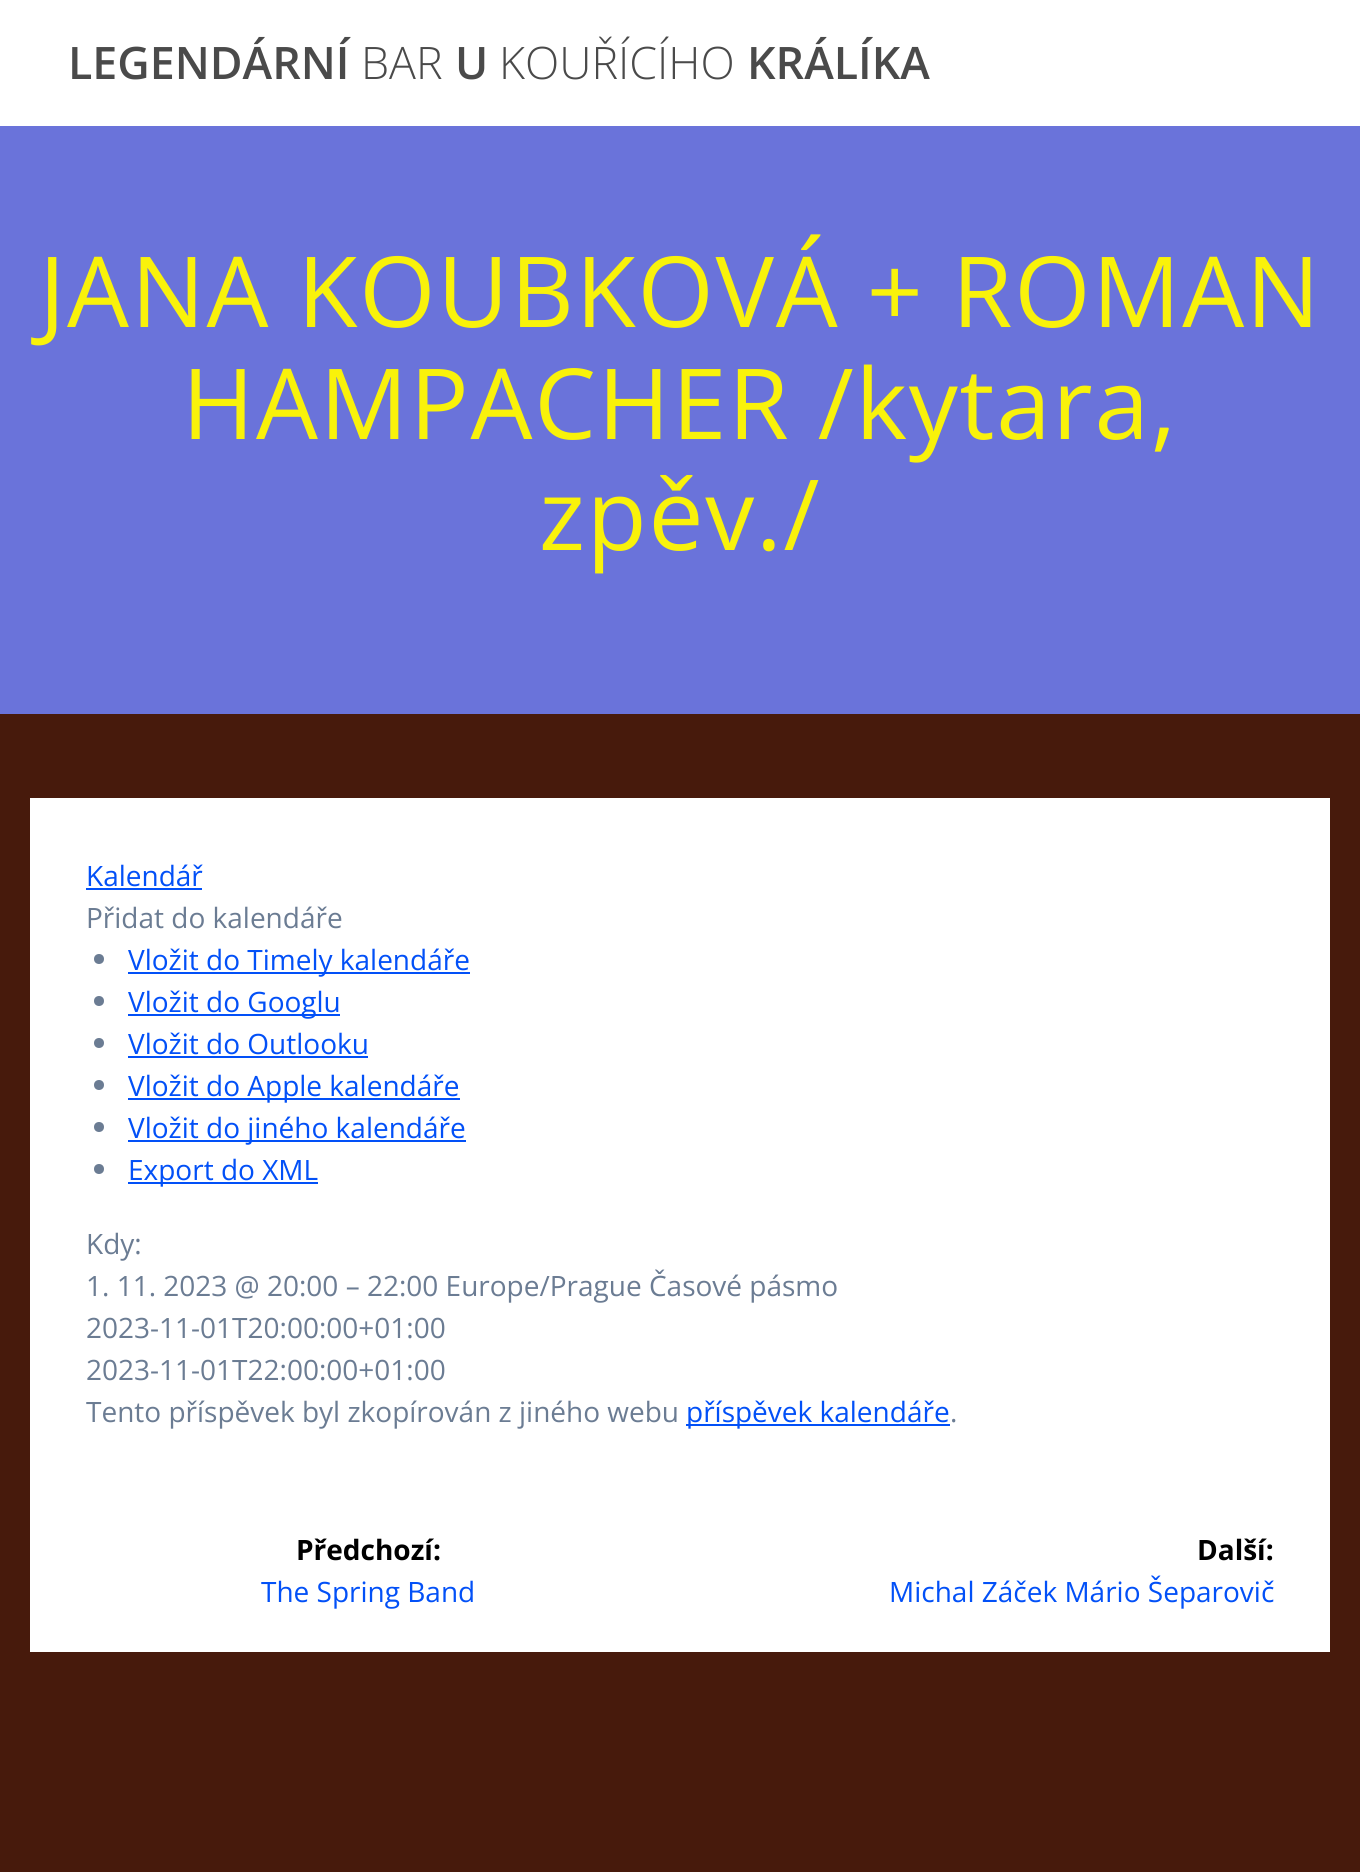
#include <cairo.h>
#include <math.h>
#include <stddef.h>

typedef struct { double x, y; const char *s; } line_t;

static void ink(cairo_t *ctx, unsigned color) {
    cairo_set_source_rgb(ctx, (color >> 16) / 255.0, (color >> 8 & 255) / 255.0, (color & 255) / 255.0);
}

static void write_spaced(cairo_t *ctx, double x, double y, const char *s, double letter, double word) {
    cairo_move_to(ctx, x, y);
    while (*s) {
        char ch[5] = {0};
        int n = 0;
        do ch[n++] = *s++; while ((*s & 0xC0) == 0x80);
        cairo_show_text(ctx, ch);
        cairo_rel_move_to(ctx, letter + word * (*ch == ' '), 0);
    }
}

int main(void) {
    cairo_surface_t *surface = cairo_image_surface_create(CAIRO_FORMAT_RGB24, 1360, 1872);
    cairo_t *ctx = cairo_create(surface);
    cairo_font_options_t *options = cairo_font_options_create();
    cairo_font_options_set_hint_metrics(options, CAIRO_HINT_METRICS_OFF);
    cairo_font_options_set_hint_style(options, CAIRO_HINT_STYLE_NONE);
    cairo_set_font_options(ctx, options);
    cairo_set_miter_limit(ctx, 4);
    ink(ctx, 0x471A0C);
    cairo_paint(ctx);
    ink(ctx, 0xFFFFFF);
    cairo_rectangle(ctx, 0, 0, 1360, 126);
    cairo_fill(ctx);
    cairo_select_font_face(ctx, "Open Sans SemiBold", CAIRO_FONT_SLANT_NORMAL, CAIRO_FONT_WEIGHT_NORMAL);
    cairo_set_font_size(ctx, 44.75);
    ink(ctx, 0x4A4A4A);
    cairo_move_to(ctx, 68, 79);
    cairo_show_text(ctx, "LEGENDÁRNÍ");
    cairo_select_font_face(ctx, "Open Sans Light", CAIRO_FONT_SLANT_NORMAL, CAIRO_FONT_WEIGHT_NORMAL);
    cairo_move_to(ctx, 361, 79);
    cairo_show_text(ctx, "BAR");
    cairo_select_font_face(ctx, "Open Sans SemiBold", CAIRO_FONT_SLANT_NORMAL, CAIRO_FONT_WEIGHT_NORMAL);
    cairo_move_to(ctx, 455, 79);
    cairo_show_text(ctx, "U");
    cairo_select_font_face(ctx, "Open Sans Light", CAIRO_FONT_SLANT_NORMAL, CAIRO_FONT_WEIGHT_NORMAL);
    cairo_move_to(ctx, 499, 79);
    cairo_show_text(ctx, "KOUŘÍCÍHO");
    cairo_select_font_face(ctx, "Open Sans SemiBold", CAIRO_FONT_SLANT_NORMAL, CAIRO_FONT_WEIGHT_NORMAL);
    cairo_move_to(ctx, 747, 79);
    cairo_show_text(ctx, "KRÁLÍKA");
    ink(ctx, 0x6A73DA);
    cairo_rectangle(ctx, 0, 126, 1360, 588);
    cairo_fill(ctx);
    cairo_select_font_face(ctx, "Open Sans", CAIRO_FONT_SLANT_NORMAL, CAIRO_FONT_WEIGHT_NORMAL);
    cairo_set_font_size(ctx, 98);
    ink(ctx, 0xF9F20A);
    {
        static const line_t items[] = {
            {39, 327, "JANA KOUBKOVÁ + ROMAN"},
            {182, 439, "HAMPACHER /kytara,"},
            {539, 550, "zpěv./"},
        };
        for (size_t i = 0; i < sizeof items / sizeof *items; i++) {
            write_spaced(ctx, items[i].x, items[i].y, items[i].s, 1.8, 0);
        }
    }
    ink(ctx, 0xFFFFFF);
    cairo_rectangle(ctx, 30, 798, 1300, 854);
    cairo_fill(ctx);
    cairo_set_font_size(ctx, 28);
    ink(ctx, 0x0250F7);
    cairo_move_to(ctx, 86, 886);
    cairo_show_text(ctx, "Kalendář");
    cairo_rectangle(ctx, 86, 888, 116, 2);
    cairo_fill(ctx);
    ink(ctx, 0x6B7C93);
    cairo_move_to(ctx, 86, 928);
    cairo_show_text(ctx, "Přidat do kalendáře");
    cairo_new_path(ctx);
    cairo_arc(ctx, 99, 959, 5, 0, 2 * M_PI);
    cairo_fill(ctx);
    ink(ctx, 0x0250F7);
    cairo_rectangle(ctx, 128, 972, 342, 2);
    cairo_fill(ctx);
    cairo_move_to(ctx, 128, 970);
    cairo_show_text(ctx, "Vložit do Timely kalendáře");
    ink(ctx, 0x6B7C93);
    cairo_new_path(ctx);
    cairo_arc(ctx, 99, 1001, 5, 0, 2 * M_PI);
    cairo_fill(ctx);
    ink(ctx, 0x0250F7);
    cairo_rectangle(ctx, 128, 1014, 212, 2);
    cairo_fill(ctx);
    cairo_move_to(ctx, 128, 1012);
    cairo_show_text(ctx, "Vložit do Googlu");
    ink(ctx, 0x6B7C93);
    cairo_new_path(ctx);
    cairo_arc(ctx, 99, 1043, 5, 0, 2 * M_PI);
    cairo_fill(ctx);
    ink(ctx, 0x0250F7);
    cairo_move_to(ctx, 128, 1054);
    cairo_show_text(ctx, "Vložit do Outlooku");
    cairo_rectangle(ctx, 128, 1056, 240, 2);
    cairo_fill(ctx);
    ink(ctx, 0x6B7C93);
    cairo_arc(ctx, 99, 1085, 5, 0, 2 * M_PI);
    cairo_fill(ctx);
    ink(ctx, 0x0250F7);
    cairo_rectangle(ctx, 128, 1098, 332, 2);
    cairo_fill(ctx);
    cairo_move_to(ctx, 128, 1096);
    cairo_show_text(ctx, "Vložit do Apple kalendáře");
    ink(ctx, 0x6B7C93);
    cairo_new_path(ctx);
    cairo_arc(ctx, 99, 1127, 5, 0, 2 * M_PI);
    cairo_fill(ctx);
    ink(ctx, 0x0250F7);
    cairo_rectangle(ctx, 128, 1140, 338, 2);
    cairo_fill(ctx);
    cairo_move_to(ctx, 128, 1138);
    cairo_show_text(ctx, "Vložit do jiného kalendáře");
    ink(ctx, 0x6B7C93);
    cairo_new_path(ctx);
    cairo_arc(ctx, 99, 1169, 5, 0, 2 * M_PI);
    cairo_fill(ctx);
    ink(ctx, 0x0250F7);
    cairo_rectangle(ctx, 128, 1182, 190, 2);
    cairo_fill(ctx);
    cairo_move_to(ctx, 128, 1180);
    cairo_show_text(ctx, "Export do XML");
    ink(ctx, 0x6B7C93);
    {
        static const line_t items[] = {
            {86, 1254, "Kdy:"},
            {86, 1296, "1. 11. 2023 @ 20:00 – 22:00 Europe/Prague Časové pásmo"},
            {86, 1338, "2023-11-01T20:00:00+01:00"},
            {86, 1380, "2023-11-01T22:00:00+01:00"},
            {86, 1422, "Tento příspěvek byl zkopírován z jiného webu"},
        };
        for (size_t i = 0; i < sizeof items / sizeof *items; i++) {
            cairo_move_to(ctx, items[i].x, items[i].y);
            cairo_show_text(ctx, items[i].s);
        }
    }
    ink(ctx, 0x0250F7);
    cairo_rectangle(ctx, 686, 1424, 264, 2);
    cairo_fill(ctx);
    cairo_move_to(ctx, 686, 1422);
    cairo_show_text(ctx, "příspěvek kalendáře");
    ink(ctx, 0x6B7C93);
    cairo_move_to(ctx, 950, 1422);
    cairo_show_text(ctx, ".");
    cairo_select_font_face(ctx, "Open Sans", CAIRO_FONT_SLANT_NORMAL, CAIRO_FONT_WEIGHT_BOLD);
    ink(ctx, 0x000000);
    cairo_move_to(ctx, 296, 1560);
    cairo_show_text(ctx, "Předchozí:");
    cairo_select_font_face(ctx, "Open Sans", CAIRO_FONT_SLANT_NORMAL, CAIRO_FONT_WEIGHT_NORMAL);
    ink(ctx, 0x0250F7);
    cairo_move_to(ctx, 261, 1602);
    cairo_show_text(ctx, "The Spring Band");
    cairo_select_font_face(ctx, "Open Sans", CAIRO_FONT_SLANT_NORMAL, CAIRO_FONT_WEIGHT_BOLD);
    ink(ctx, 0x000000);
    cairo_move_to(ctx, 1197, 1560);
    cairo_show_text(ctx, "Další:");
    cairo_select_font_face(ctx, "Open Sans", CAIRO_FONT_SLANT_NORMAL, CAIRO_FONT_WEIGHT_NORMAL);
    ink(ctx, 0x0250F7);
    cairo_move_to(ctx, 889, 1602);
    cairo_show_text(ctx, "Michal Záček Mário Šeparovič");
    cairo_surface_write_to_png(surface, "image.png");
    cairo_font_options_destroy(options);
    cairo_destroy(ctx);
    cairo_surface_destroy(surface);
    return 0;
}
